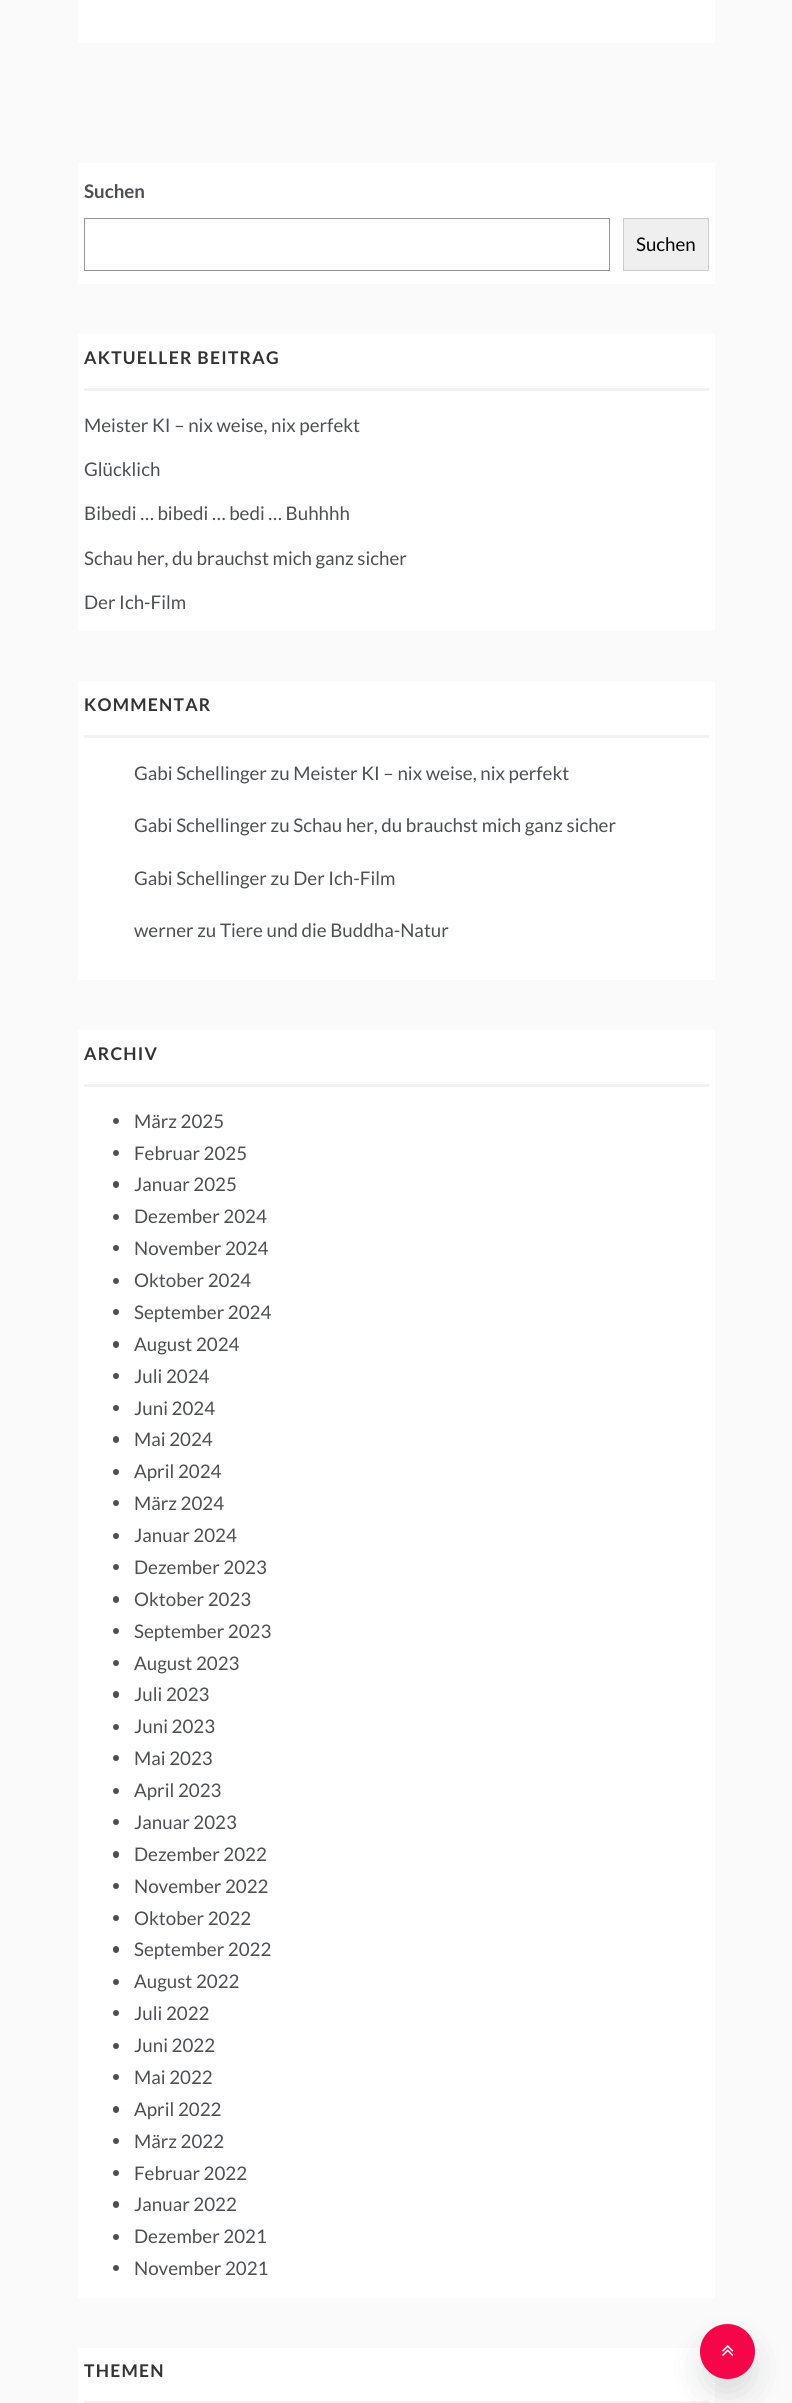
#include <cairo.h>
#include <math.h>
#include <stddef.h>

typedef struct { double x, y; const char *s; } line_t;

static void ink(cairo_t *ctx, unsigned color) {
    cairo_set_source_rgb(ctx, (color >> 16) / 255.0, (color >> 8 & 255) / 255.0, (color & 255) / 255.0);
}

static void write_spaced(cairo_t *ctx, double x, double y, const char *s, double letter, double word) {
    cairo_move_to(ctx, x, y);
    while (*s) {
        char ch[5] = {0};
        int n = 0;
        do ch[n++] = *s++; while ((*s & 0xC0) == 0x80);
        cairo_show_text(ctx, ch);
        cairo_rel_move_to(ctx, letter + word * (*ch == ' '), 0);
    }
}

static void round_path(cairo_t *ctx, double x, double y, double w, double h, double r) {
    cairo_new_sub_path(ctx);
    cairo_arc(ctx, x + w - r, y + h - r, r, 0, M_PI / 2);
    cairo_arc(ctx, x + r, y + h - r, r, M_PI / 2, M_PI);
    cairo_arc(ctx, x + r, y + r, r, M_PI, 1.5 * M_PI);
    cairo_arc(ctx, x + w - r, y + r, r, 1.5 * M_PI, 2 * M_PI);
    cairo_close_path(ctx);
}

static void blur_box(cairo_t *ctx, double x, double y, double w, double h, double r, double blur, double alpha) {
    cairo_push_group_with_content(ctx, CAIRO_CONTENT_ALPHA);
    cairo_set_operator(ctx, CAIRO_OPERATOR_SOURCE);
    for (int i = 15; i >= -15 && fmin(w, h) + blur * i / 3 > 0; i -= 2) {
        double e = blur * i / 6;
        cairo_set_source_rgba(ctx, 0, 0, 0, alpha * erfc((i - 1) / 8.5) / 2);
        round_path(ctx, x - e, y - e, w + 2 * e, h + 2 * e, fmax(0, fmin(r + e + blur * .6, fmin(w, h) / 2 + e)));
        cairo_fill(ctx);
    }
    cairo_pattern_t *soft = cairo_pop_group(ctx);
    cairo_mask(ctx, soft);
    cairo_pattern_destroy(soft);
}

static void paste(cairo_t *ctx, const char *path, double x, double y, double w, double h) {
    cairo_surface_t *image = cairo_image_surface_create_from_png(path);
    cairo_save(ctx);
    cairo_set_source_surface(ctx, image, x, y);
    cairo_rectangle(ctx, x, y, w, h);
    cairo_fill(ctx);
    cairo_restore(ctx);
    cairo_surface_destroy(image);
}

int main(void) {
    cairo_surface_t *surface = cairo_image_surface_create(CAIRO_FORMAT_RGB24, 792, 2403);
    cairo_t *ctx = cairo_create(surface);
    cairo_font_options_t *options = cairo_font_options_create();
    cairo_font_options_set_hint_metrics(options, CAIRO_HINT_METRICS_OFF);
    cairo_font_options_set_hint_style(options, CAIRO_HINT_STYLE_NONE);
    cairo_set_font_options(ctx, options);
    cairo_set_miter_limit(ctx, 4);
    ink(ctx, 0xFAFAFA);
    cairo_paint(ctx);
    ink(ctx, 0xFFFFFF);
    cairo_rectangle(ctx, 78, 0, 637, 43);
    cairo_fill(ctx);
    cairo_rectangle(ctx, 78, 163, 637, 121);
    cairo_fill(ctx);
    cairo_select_font_face(ctx, "Lato", CAIRO_FONT_SLANT_NORMAL, CAIRO_FONT_WEIGHT_BOLD);
    cairo_set_font_size(ctx, 18.75);
    ink(ctx, 0x4C4F53);
    cairo_move_to(ctx, 84, 198);
    cairo_show_text(ctx, "Suchen");
    cairo_rectangle(ctx, 84.5, 218.5, 525, 52);
    ink(ctx, 0x949494);
    cairo_set_line_width(ctx, 1);
    cairo_stroke(ctx);
    ink(ctx, 0xEFEFEF);
    cairo_rectangle(ctx, 623.5, 218.5, 85, 52);
    cairo_fill_preserve(ctx);
    ink(ctx, 0xCCCCCC);
    cairo_stroke(ctx);
    cairo_select_font_face(ctx, "Lato", CAIRO_FONT_SLANT_NORMAL, CAIRO_FONT_WEIGHT_NORMAL);
    ink(ctx, 0x000000);
    cairo_move_to(ctx, 636, 251);
    cairo_show_text(ctx, "Suchen");
    ink(ctx, 0xFFFFFF);
    cairo_rectangle(ctx, 78, 334, 637, 297);
    cairo_fill(ctx);
    ink(ctx, 0xF3F2F1);
    cairo_rectangle(ctx, 84, 388, 625, 3);
    cairo_fill(ctx);
    cairo_select_font_face(ctx, "Lato", CAIRO_FONT_SLANT_NORMAL, CAIRO_FONT_WEIGHT_BOLD);
    cairo_set_font_size(ctx, 17.5);
    ink(ctx, 0x333333);
    write_spaced(ctx, 84, 364, "AKTUELLER BEITRAG", 1.25, 0);
    cairo_select_font_face(ctx, "Lato", CAIRO_FONT_SLANT_NORMAL, CAIRO_FONT_WEIGHT_NORMAL);
    cairo_set_font_size(ctx, 18.75);
    ink(ctx, 0x4C4F53);
    {
        static const line_t items[] = {
            {84, 432, "Meister KI – nix weise, nix perfekt"},
            {84, 476, "Glücklich"},
            {84, 520, "Bibedi … bibedi … bedi … Buhhhh"},
            {84, 565, "Schau her, du brauchst mich ganz sicher"},
            {84, 609, "Der Ich-Film"},
        };
        for (size_t i = 0; i < sizeof items / sizeof *items; i++) {
            cairo_move_to(ctx, items[i].x, items[i].y);
            cairo_show_text(ctx, items[i].s);
        }
    }
    ink(ctx, 0xFFFFFF);
    cairo_rectangle(ctx, 78, 681, 637, 299);
    cairo_fill(ctx);
    ink(ctx, 0xF3F2F1);
    cairo_rectangle(ctx, 84, 735, 625, 3);
    cairo_fill(ctx);
    cairo_select_font_face(ctx, "Lato", CAIRO_FONT_SLANT_NORMAL, CAIRO_FONT_WEIGHT_BOLD);
    cairo_set_font_size(ctx, 17.5);
    ink(ctx, 0x333333);
    write_spaced(ctx, 84, 711, "KOMMENTAR", 1.25, 0);
    cairo_select_font_face(ctx, "Lato", CAIRO_FONT_SLANT_NORMAL, CAIRO_FONT_WEIGHT_NORMAL);
    cairo_set_font_size(ctx, 18.75);
    ink(ctx, 0x4C4F53);
    {
        static const line_t items[] = {
            {134, 780, "Gabi Schellinger zu Meister KI – nix weise, nix perfekt"},
            {134, 832, "Gabi Schellinger zu Schau her, du brauchst mich ganz sicher"},
            {134, 885, "Gabi Schellinger zu Der Ich-Film"},
            {134, 937, "werner zu Tiere und die Buddha-Natur"},
        };
        for (size_t i = 0; i < sizeof items / sizeof *items; i++) {
            cairo_move_to(ctx, items[i].x, items[i].y);
            cairo_show_text(ctx, items[i].s);
        }
    }
    ink(ctx, 0xFFFFFF);
    cairo_rectangle(ctx, 78, 1030, 637, 1268);
    cairo_fill(ctx);
    ink(ctx, 0xF3F2F1);
    cairo_rectangle(ctx, 84, 1084, 625, 3);
    cairo_fill(ctx);
    cairo_select_font_face(ctx, "Lato", CAIRO_FONT_SLANT_NORMAL, CAIRO_FONT_WEIGHT_BOLD);
    cairo_set_font_size(ctx, 17.5);
    ink(ctx, 0x333333);
    write_spaced(ctx, 84, 1060, "ARCHIV", 1.25, 0);
    ink(ctx, 0x4C4F53);
    cairo_new_path(ctx);
    cairo_arc(ctx, 116, 1121, 3, 0, 2 * M_PI);
    cairo_fill(ctx);
    cairo_select_font_face(ctx, "Lato", CAIRO_FONT_SLANT_NORMAL, CAIRO_FONT_WEIGHT_NORMAL);
    cairo_set_font_size(ctx, 18.75);
    cairo_move_to(ctx, 134, 1128);
    cairo_show_text(ctx, "März 2025");
    cairo_new_path(ctx);
    cairo_arc(ctx, 116, 1153, 3, 0, 2 * M_PI);
    cairo_fill(ctx);
    cairo_move_to(ctx, 134, 1160);
    cairo_show_text(ctx, "Februar 2025");
    round_path(ctx, 113, 1181, 6, 7, 3);
    cairo_fill(ctx);
    cairo_move_to(ctx, 134, 1191);
    cairo_show_text(ctx, "Januar 2025");
    cairo_new_path(ctx);
    cairo_arc(ctx, 116, 1217, 3, 0, 2 * M_PI);
    cairo_fill(ctx);
    cairo_move_to(ctx, 134, 1223);
    cairo_show_text(ctx, "Dezember 2024");
    cairo_new_path(ctx);
    cairo_arc(ctx, 116, 1248, 3, 0, 2 * M_PI);
    cairo_fill(ctx);
    cairo_move_to(ctx, 134, 1255);
    cairo_show_text(ctx, "November 2024");
    cairo_new_path(ctx);
    cairo_arc(ctx, 116, 1281, 3, 0, 2 * M_PI);
    cairo_fill(ctx);
    cairo_move_to(ctx, 134, 1287);
    cairo_show_text(ctx, "Oktober 2024");
    cairo_new_path(ctx);
    cairo_arc(ctx, 116, 1312, 3, 0, 2 * M_PI);
    cairo_fill(ctx);
    cairo_move_to(ctx, 134, 1319);
    cairo_show_text(ctx, "September 2024");
    round_path(ctx, 113, 1341, 6, 7, 3);
    cairo_fill(ctx);
    cairo_move_to(ctx, 134, 1351);
    cairo_show_text(ctx, "August 2024");
    cairo_new_path(ctx);
    cairo_arc(ctx, 116, 1376, 3, 0, 2 * M_PI);
    cairo_fill(ctx);
    cairo_move_to(ctx, 134, 1383);
    cairo_show_text(ctx, "Juli 2024");
    cairo_new_path(ctx);
    cairo_arc(ctx, 116, 1408, 3, 0, 2 * M_PI);
    cairo_fill(ctx);
    cairo_move_to(ctx, 134, 1415);
    cairo_show_text(ctx, "Juni 2024");
    round_path(ctx, 113, 1436, 6, 7, 3);
    cairo_fill(ctx);
    cairo_move_to(ctx, 134, 1446);
    cairo_show_text(ctx, "Mai 2024");
    cairo_new_path(ctx);
    cairo_arc(ctx, 116, 1472, 3, 0, 2 * M_PI);
    cairo_fill(ctx);
    cairo_move_to(ctx, 134, 1478);
    cairo_show_text(ctx, "April 2024");
    cairo_new_path(ctx);
    cairo_arc(ctx, 116, 1503, 3, 0, 2 * M_PI);
    cairo_fill(ctx);
    cairo_move_to(ctx, 134, 1510);
    cairo_show_text(ctx, "März 2024");
    cairo_new_path(ctx);
    cairo_arc(ctx, 116, 1536, 3, 0, 2 * M_PI);
    cairo_fill(ctx);
    cairo_move_to(ctx, 134, 1542);
    cairo_show_text(ctx, "Januar 2024");
    cairo_new_path(ctx);
    cairo_arc(ctx, 116, 1567, 3, 0, 2 * M_PI);
    cairo_fill(ctx);
    cairo_move_to(ctx, 134, 1574);
    cairo_show_text(ctx, "Dezember 2023");
    round_path(ctx, 113, 1596, 6, 7, 3);
    cairo_fill(ctx);
    cairo_move_to(ctx, 134, 1606);
    cairo_show_text(ctx, "Oktober 2023");
    cairo_new_path(ctx);
    cairo_arc(ctx, 116, 1631, 3, 0, 2 * M_PI);
    cairo_fill(ctx);
    cairo_move_to(ctx, 134, 1638);
    cairo_show_text(ctx, "September 2023");
    cairo_new_path(ctx);
    cairo_arc(ctx, 116, 1663, 3, 0, 2 * M_PI);
    cairo_fill(ctx);
    cairo_move_to(ctx, 134, 1670);
    cairo_show_text(ctx, "August 2023");
    round_path(ctx, 113, 1691, 6, 7, 3);
    cairo_fill(ctx);
    cairo_move_to(ctx, 134, 1701);
    cairo_show_text(ctx, "Juli 2023");
    cairo_new_path(ctx);
    cairo_arc(ctx, 116, 1727, 3, 0, 2 * M_PI);
    cairo_fill(ctx);
    cairo_move_to(ctx, 134, 1733);
    cairo_show_text(ctx, "Juni 2023");
    cairo_new_path(ctx);
    cairo_arc(ctx, 116, 1758, 3, 0, 2 * M_PI);
    cairo_fill(ctx);
    cairo_move_to(ctx, 134, 1765);
    cairo_show_text(ctx, "Mai 2023");
    cairo_new_path(ctx);
    cairo_arc(ctx, 116, 1791, 3, 0, 2 * M_PI);
    cairo_fill(ctx);
    cairo_move_to(ctx, 134, 1797);
    cairo_show_text(ctx, "April 2023");
    cairo_new_path(ctx);
    cairo_arc(ctx, 116, 1822, 3, 0, 2 * M_PI);
    cairo_fill(ctx);
    cairo_move_to(ctx, 134, 1829);
    cairo_show_text(ctx, "Januar 2023");
    round_path(ctx, 113, 1851, 6, 7, 3);
    cairo_fill(ctx);
    cairo_move_to(ctx, 134, 1861);
    cairo_show_text(ctx, "Dezember 2022");
    cairo_new_path(ctx);
    cairo_arc(ctx, 116, 1886, 3, 0, 2 * M_PI);
    cairo_fill(ctx);
    cairo_move_to(ctx, 134, 1893);
    cairo_show_text(ctx, "November 2022");
    cairo_new_path(ctx);
    cairo_arc(ctx, 116, 1918, 3, 0, 2 * M_PI);
    cairo_fill(ctx);
    cairo_move_to(ctx, 134, 1925);
    cairo_show_text(ctx, "Oktober 2022");
    round_path(ctx, 113, 1946, 6, 7, 3);
    cairo_fill(ctx);
    cairo_move_to(ctx, 134, 1956);
    cairo_show_text(ctx, "September 2022");
    cairo_new_path(ctx);
    cairo_arc(ctx, 116, 1982, 3, 0, 2 * M_PI);
    cairo_fill(ctx);
    cairo_move_to(ctx, 134, 1988);
    cairo_show_text(ctx, "August 2022");
    cairo_new_path(ctx);
    cairo_arc(ctx, 116, 2013, 3, 0, 2 * M_PI);
    cairo_fill(ctx);
    cairo_move_to(ctx, 134, 2020);
    cairo_show_text(ctx, "Juli 2022");
    cairo_new_path(ctx);
    cairo_arc(ctx, 116, 2046, 3, 0, 2 * M_PI);
    cairo_fill(ctx);
    cairo_move_to(ctx, 134, 2052);
    cairo_show_text(ctx, "Juni 2022");
    cairo_new_path(ctx);
    cairo_arc(ctx, 116, 2077, 3, 0, 2 * M_PI);
    cairo_fill(ctx);
    cairo_move_to(ctx, 134, 2084);
    cairo_show_text(ctx, "Mai 2022");
    round_path(ctx, 113, 2106, 6, 7, 3);
    cairo_fill(ctx);
    cairo_move_to(ctx, 134, 2116);
    cairo_show_text(ctx, "April 2022");
    cairo_new_path(ctx);
    cairo_arc(ctx, 116, 2141, 3, 0, 2 * M_PI);
    cairo_fill(ctx);
    cairo_move_to(ctx, 134, 2148);
    cairo_show_text(ctx, "März 2022");
    cairo_new_path(ctx);
    cairo_arc(ctx, 116, 2173, 3, 0, 2 * M_PI);
    cairo_fill(ctx);
    cairo_move_to(ctx, 134, 2180);
    cairo_show_text(ctx, "Februar 2022");
    round_path(ctx, 113, 2201, 6, 7, 3);
    cairo_fill(ctx);
    cairo_move_to(ctx, 134, 2211);
    cairo_show_text(ctx, "Januar 2022");
    cairo_new_path(ctx);
    cairo_arc(ctx, 116, 2237, 3, 0, 2 * M_PI);
    cairo_fill(ctx);
    cairo_move_to(ctx, 134, 2243);
    cairo_show_text(ctx, "Dezember 2021");
    cairo_new_path(ctx);
    cairo_arc(ctx, 116, 2268, 3, 0, 2 * M_PI);
    cairo_fill(ctx);
    cairo_move_to(ctx, 134, 2275);
    cairo_show_text(ctx, "November 2021");
    ink(ctx, 0xFFFFFF);
    cairo_rectangle(ctx, 78, 2348, 637, 55);
    cairo_fill(ctx);
    ink(ctx, 0xF3F2F1);
    cairo_rectangle(ctx, 84, 2401, 625, 2);
    cairo_fill(ctx);
    cairo_select_font_face(ctx, "Lato", CAIRO_FONT_SLANT_NORMAL, CAIRO_FONT_WEIGHT_BOLD);
    cairo_set_font_size(ctx, 17.5);
    ink(ctx, 0x333333);
    write_spaced(ctx, 84, 2377, "THEMEN", 1.25, 0);
    ink(ctx, 0x0E1114);
    blur_box(ctx, 705, 2346, 45, 45, 22.5, 17.5, 0.15);
    ink(ctx, 0xF50649);
    cairo_arc(ctx, 727.5, 2351.5, 27.5, 0, 2 * M_PI);
    cairo_fill(ctx);
    paste(ctx, "media/1.png", 722, 2345, 12, 11);
    cairo_surface_write_to_png(surface, "image.png");
    cairo_font_options_destroy(options);
    cairo_destroy(ctx);
    cairo_surface_destroy(surface);
    return 0;
}
